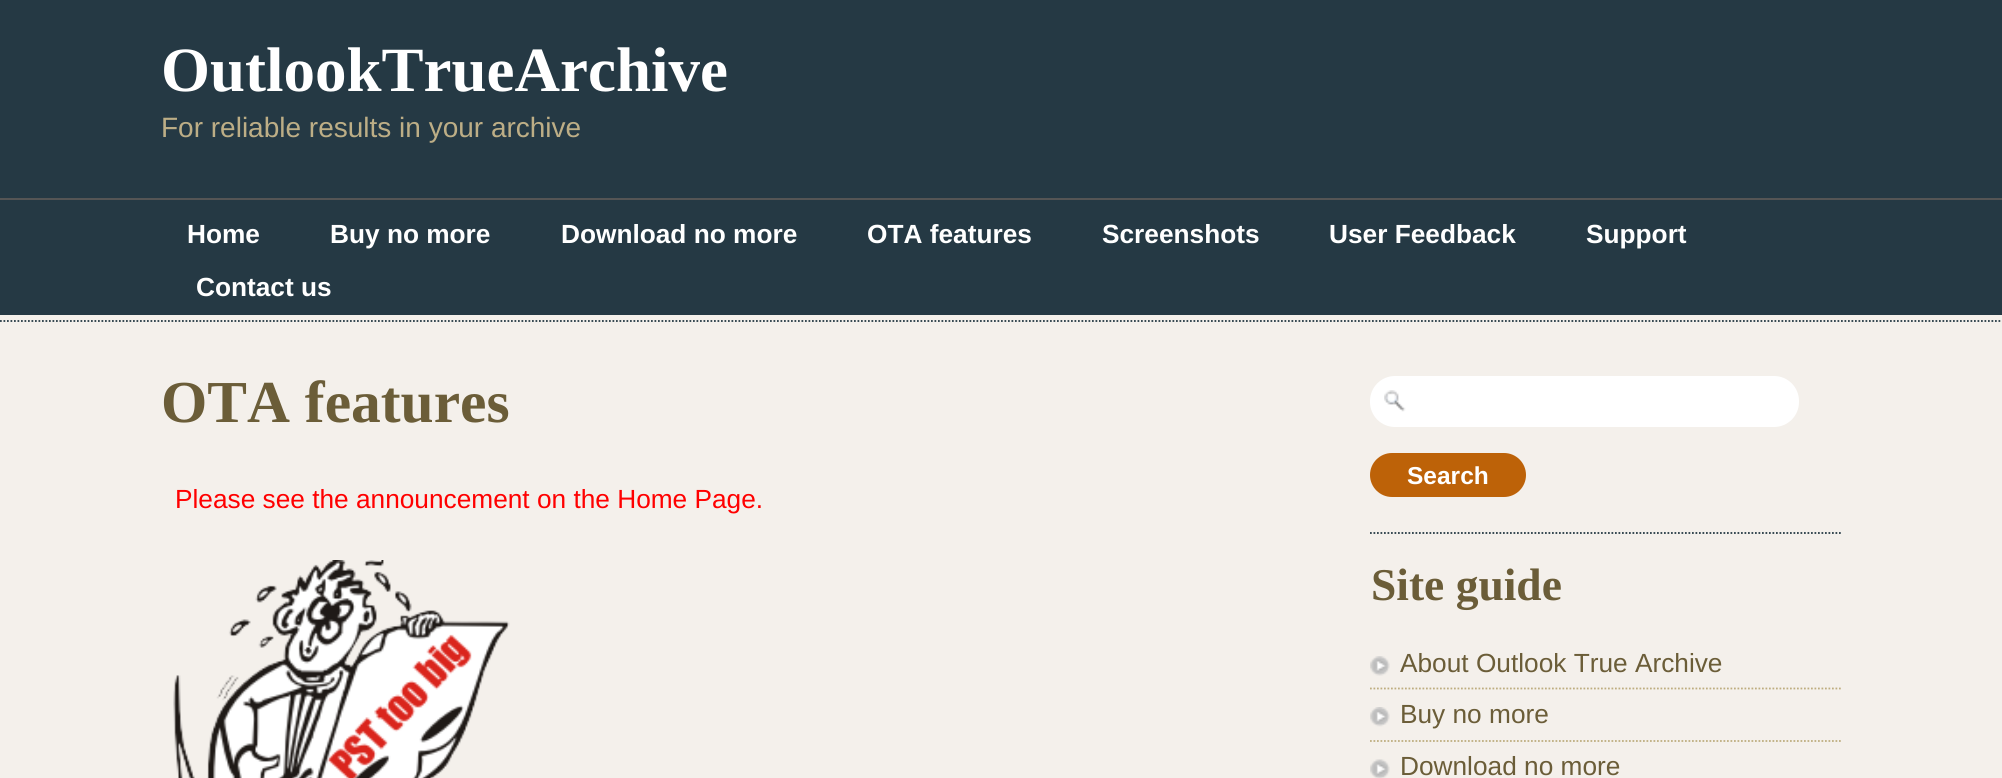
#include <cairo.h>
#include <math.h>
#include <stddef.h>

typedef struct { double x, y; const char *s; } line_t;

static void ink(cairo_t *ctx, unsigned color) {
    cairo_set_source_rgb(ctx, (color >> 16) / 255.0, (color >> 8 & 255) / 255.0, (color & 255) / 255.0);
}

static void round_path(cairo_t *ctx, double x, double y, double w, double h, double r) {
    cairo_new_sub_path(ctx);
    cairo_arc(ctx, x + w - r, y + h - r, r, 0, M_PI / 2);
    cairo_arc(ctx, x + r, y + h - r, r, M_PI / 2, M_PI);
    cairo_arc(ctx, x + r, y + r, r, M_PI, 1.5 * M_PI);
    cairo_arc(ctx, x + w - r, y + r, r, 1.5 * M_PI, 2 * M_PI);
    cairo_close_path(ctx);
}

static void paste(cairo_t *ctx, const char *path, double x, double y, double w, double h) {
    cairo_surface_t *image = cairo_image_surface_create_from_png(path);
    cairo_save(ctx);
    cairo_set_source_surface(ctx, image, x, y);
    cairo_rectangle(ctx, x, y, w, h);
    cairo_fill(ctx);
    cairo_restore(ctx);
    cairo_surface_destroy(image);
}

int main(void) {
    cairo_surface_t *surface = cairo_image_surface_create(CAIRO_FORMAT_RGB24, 2002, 778);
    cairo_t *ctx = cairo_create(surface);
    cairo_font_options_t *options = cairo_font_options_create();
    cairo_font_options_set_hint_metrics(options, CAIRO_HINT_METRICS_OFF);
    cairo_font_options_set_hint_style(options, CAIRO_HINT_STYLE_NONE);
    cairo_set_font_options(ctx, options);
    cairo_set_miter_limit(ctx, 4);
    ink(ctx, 0xF4F0EB);
    cairo_paint(ctx);
    ink(ctx, 0x253944);
    cairo_rectangle(ctx, 0, 0, 2002, 315);
    cairo_fill(ctx);
    cairo_select_font_face(ctx, "Liberation Serif", CAIRO_FONT_SLANT_NORMAL, CAIRO_FONT_WEIGHT_BOLD);
    cairo_set_font_size(ctx, 63);
    ink(ctx, 0xFFFFFF);
    cairo_move_to(ctx, 161, 91);
    cairo_show_text(ctx, "OutlookTrueArchive");
    cairo_select_font_face(ctx, "Liberation Sans", CAIRO_FONT_SLANT_NORMAL, CAIRO_FONT_WEIGHT_NORMAL);
    cairo_set_font_size(ctx, 28);
    ink(ctx, 0xBDAE86);
    cairo_move_to(ctx, 161, 137);
    cairo_show_text(ctx, "For reliable results in your archive");
    ink(ctx, 0x555555);
    cairo_rectangle(ctx, 0, 198, 2002, 2);
    cairo_fill(ctx);
    cairo_select_font_face(ctx, "Liberation Sans", CAIRO_FONT_SLANT_NORMAL, CAIRO_FONT_WEIGHT_BOLD);
    cairo_set_font_size(ctx, 26.25);
    ink(ctx, 0xFFFFFF);
    {
        static const line_t items[] = {
            {187, 243, "Home"},
            {330, 243, "Buy no more"},
            {561, 243, "Download no more"},
            {867, 243, "OTA features"},
            {1102, 243, "Screenshots"},
            {1329, 243, "User Feedback"},
            {1586, 243, "Support"},
            {196, 296, "Contact us"},
        };
        for (size_t i = 0; i < sizeof items / sizeof *items; i++) {
            cairo_move_to(ctx, items[i].x, items[i].y);
            cairo_show_text(ctx, items[i].s);
        }
    }
    cairo_new_path(ctx);
    cairo_move_to(ctx, 0, 321);
    cairo_line_to(ctx, 2002, 321);
    ink(ctx, 0x253944);
    cairo_set_line_width(ctx, 1.8);
    cairo_set_dash(ctx, (double[]){1.75, 1.75}, 2, 0);
    cairo_stroke(ctx);
    cairo_select_font_face(ctx, "Liberation Serif", CAIRO_FONT_SLANT_NORMAL, CAIRO_FONT_WEIGHT_BOLD);
    cairo_set_font_size(ctx, 59.5);
    ink(ctx, 0x6B5D38);
    cairo_move_to(ctx, 161, 422);
    cairo_show_text(ctx, "OTA features");
    cairo_select_font_face(ctx, "Liberation Sans", CAIRO_FONT_SLANT_NORMAL, CAIRO_FONT_WEIGHT_NORMAL);
    cairo_set_font_size(ctx, 26.25);
    ink(ctx, 0xFF0000);
    cairo_move_to(ctx, 175, 508);
    cairo_show_text(ctx, "Please see the announcement on the Home Page.");
    paste(ctx, "media/1.png", 173, 560, 337, 218);
    cairo_new_path(ctx);
    cairo_move_to(ctx, 1370, 533);
    cairo_line_to(ctx, 1841, 533);
    ink(ctx, 0x253944);
    cairo_stroke(ctx);
    ink(ctx, 0xFFFFFF);
    round_path(ctx, 1370, 376, 429, 51, 25);
    cairo_fill(ctx);
    paste(ctx, "media/2.png", 1384, 390, 22, 22);
    ink(ctx, 0xBD6208);
    round_path(ctx, 1370, 453, 156, 44, 22);
    cairo_fill(ctx);
    cairo_select_font_face(ctx, "Liberation Sans", CAIRO_FONT_SLANT_NORMAL, CAIRO_FONT_WEIGHT_BOLD);
    cairo_set_font_size(ctx, 24.5);
    ink(ctx, 0xFFFFFF);
    cairo_move_to(ctx, 1407, 484);
    cairo_show_text(ctx, "Search");
    cairo_select_font_face(ctx, "Liberation Serif", CAIRO_FONT_SLANT_NORMAL, CAIRO_FONT_WEIGHT_BOLD);
    cairo_set_font_size(ctx, 45.5);
    ink(ctx, 0x6B5D38);
    cairo_move_to(ctx, 1371, 600);
    cairo_show_text(ctx, "Site guide");
    paste(ctx, "media/3.png", 1370, 656, 20, 20);
    cairo_new_path(ctx);
    cairo_move_to(ctx, 1370, 688.5);
    cairo_line_to(ctx, 1841, 688.5);
    ink(ctx, 0xBEAD7F);
    cairo_stroke(ctx);
    cairo_select_font_face(ctx, "Liberation Sans", CAIRO_FONT_SLANT_NORMAL, CAIRO_FONT_WEIGHT_NORMAL);
    cairo_set_font_size(ctx, 26.25);
    ink(ctx, 0x6B5D38);
    cairo_move_to(ctx, 1400, 672);
    cairo_show_text(ctx, "About Outlook True Archive");
    paste(ctx, "media/4.png", 1370, 707, 20, 20);
    cairo_new_path(ctx);
    cairo_move_to(ctx, 1370, 741);
    cairo_line_to(ctx, 1841, 741);
    ink(ctx, 0xBEAD7F);
    cairo_stroke(ctx);
    ink(ctx, 0x6B5D38);
    cairo_move_to(ctx, 1400, 723);
    cairo_show_text(ctx, "Buy no more");
    paste(ctx, "media/5.png", 1370, 759, 20, 19);
    cairo_move_to(ctx, 1400, 775);
    cairo_show_text(ctx, "Download no more");
    cairo_surface_write_to_png(surface, "image.png");
    cairo_font_options_destroy(options);
    cairo_destroy(ctx);
    cairo_surface_destroy(surface);
    return 0;
}
